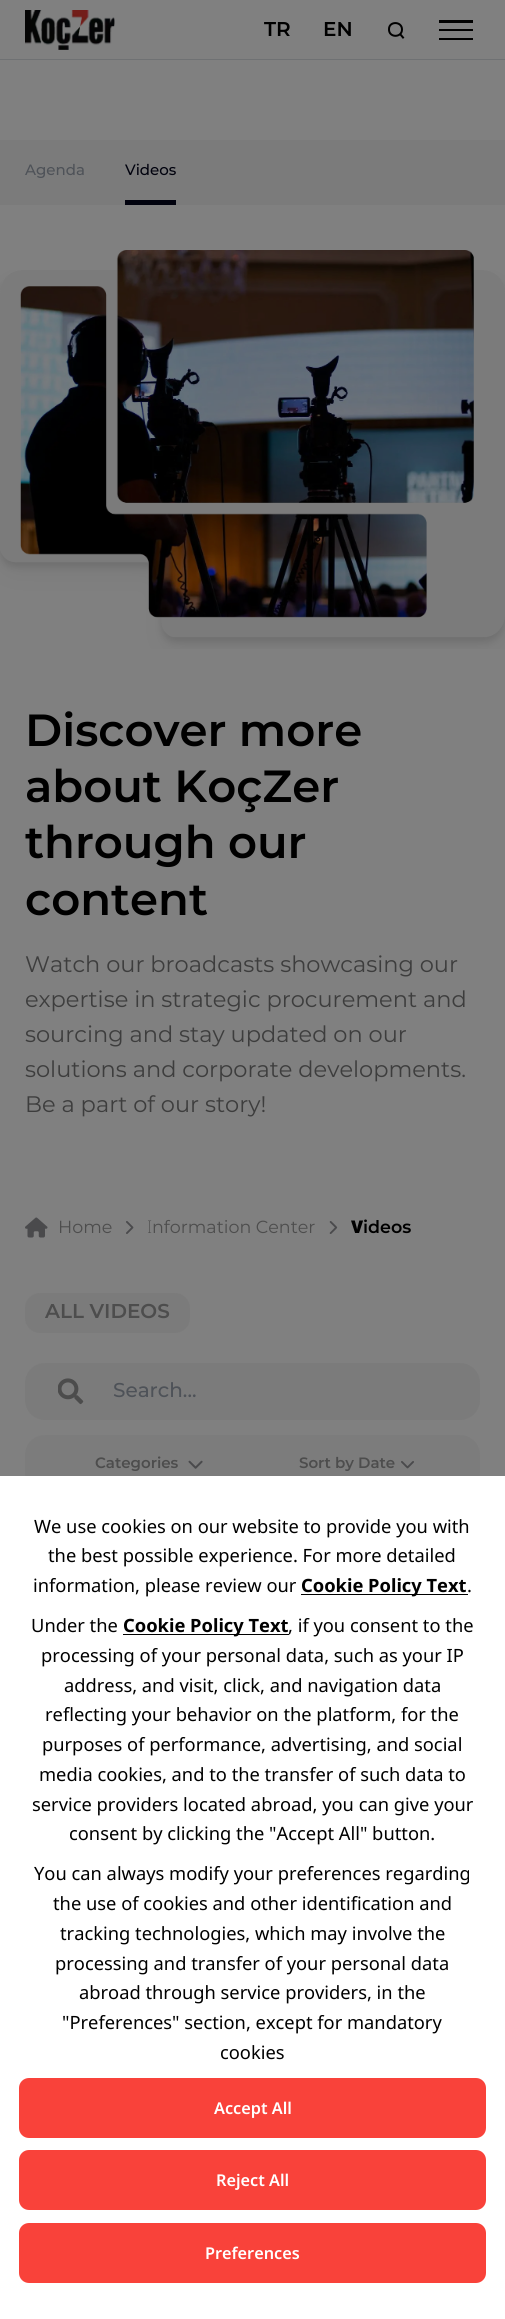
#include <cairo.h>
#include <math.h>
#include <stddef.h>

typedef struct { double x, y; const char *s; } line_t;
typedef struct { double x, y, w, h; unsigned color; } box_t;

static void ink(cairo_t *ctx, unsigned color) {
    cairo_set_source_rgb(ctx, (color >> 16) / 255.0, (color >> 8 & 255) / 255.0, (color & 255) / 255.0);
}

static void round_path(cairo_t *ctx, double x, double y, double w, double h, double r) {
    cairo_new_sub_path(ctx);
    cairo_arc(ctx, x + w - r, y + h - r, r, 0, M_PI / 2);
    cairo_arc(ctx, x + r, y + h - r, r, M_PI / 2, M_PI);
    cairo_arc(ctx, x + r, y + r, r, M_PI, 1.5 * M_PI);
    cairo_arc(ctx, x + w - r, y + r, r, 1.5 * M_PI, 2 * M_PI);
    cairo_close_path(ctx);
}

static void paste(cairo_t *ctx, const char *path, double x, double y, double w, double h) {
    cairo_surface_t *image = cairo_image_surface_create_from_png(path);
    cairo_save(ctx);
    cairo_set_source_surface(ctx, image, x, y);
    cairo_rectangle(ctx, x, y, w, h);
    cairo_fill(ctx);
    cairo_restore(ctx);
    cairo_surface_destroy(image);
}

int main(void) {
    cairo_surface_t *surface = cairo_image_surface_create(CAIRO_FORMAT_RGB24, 505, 2319);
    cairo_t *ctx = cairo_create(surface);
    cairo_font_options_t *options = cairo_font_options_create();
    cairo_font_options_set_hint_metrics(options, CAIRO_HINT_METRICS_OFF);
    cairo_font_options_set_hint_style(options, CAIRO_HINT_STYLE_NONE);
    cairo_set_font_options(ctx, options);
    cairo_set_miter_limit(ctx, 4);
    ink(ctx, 0x808080);
    cairo_paint(ctx);
    ink(ctx, 0x6F7173);
    cairo_rectangle(ctx, 0, 59, 505, 1);
    cairo_fill(ctx);
    paste(ctx, "media/1.png", 25, 10, 90, 40);
    cairo_select_font_face(ctx, "Montserrat SemiBold", CAIRO_FONT_SLANT_NORMAL, CAIRO_FONT_WEIGHT_NORMAL);
    cairo_set_font_size(ctx, 20);
    ink(ctx, 0x000000);
    cairo_move_to(ctx, 264, 36);
    cairo_show_text(ctx, "TR");
    cairo_move_to(ctx, 323, 36);
    cairo_show_text(ctx, "EN");
    cairo_new_path(ctx);
    cairo_move_to(ctx, 403, 37.5);
    cairo_line_to(ctx, 400.5, 34.5);
    cairo_move_to(ctx, 402, 29.5);
    cairo_curve_to(ctx, 402, 38, 388.5, 38, 389, 29);
    cairo_curve_to(ctx, 389, 21, 402, 21, 402, 29.5);
    cairo_close_path(ctx);
    cairo_set_line_cap(ctx, CAIRO_LINE_CAP_SQUARE);
    cairo_set_line_join(ctx, CAIRO_LINE_JOIN_ROUND);
    cairo_stroke(ctx);
    {
        static const box_t items[] = {
            {439, 20, 34, 3, 0x000000},
            {439, 29, 34, 2, 0x000000},
            {439, 38, 34, 2, 0x000000},
            {0, 140, 505, 65, 0x7B7B7B},
        };
        for (size_t i = 0; i < sizeof items / sizeof *items; i++) {
            ink(ctx, items[i].color);
            cairo_rectangle(ctx, items[i].x, items[i].y, items[i].w, items[i].h);
            cairo_fill(ctx);
        }
    }
    cairo_select_font_face(ctx, "Montserrat Medium", CAIRO_FONT_SLANT_NORMAL, CAIRO_FONT_WEIGHT_NORMAL);
    cairo_set_font_size(ctx, 15);
    ink(ctx, 0x4E5258);
    cairo_move_to(ctx, 25, 175);
    cairo_show_text(ctx, "Agenda");
    ink(ctx, 0x01020E);
    cairo_rectangle(ctx, 125, 200, 51, 5);
    cairo_fill(ctx);
    cairo_move_to(ctx, 125, 175);
    cairo_show_text(ctx, "Videos");
    paste(ctx, "media/3.png", 0, 270, 505, 379);
    paste(ctx, "media/2.png", 20, 250, 454, 368);
    cairo_select_font_face(ctx, "Montserrat SemiBold", CAIRO_FONT_SLANT_NORMAL, CAIRO_FONT_WEIGHT_NORMAL);
    cairo_set_font_size(ctx, 45);
    ink(ctx, 0x000000);
    {
        static const line_t items[] = {
            {25, 746, "Discover more"},
            {25, 802, "about KoçZer"},
            {25, 858, "through our"},
            {25, 915, "content"},
        };
        for (size_t i = 0; i < sizeof items / sizeof *items; i++) {
            cairo_move_to(ctx, items[i].x, items[i].y);
            cairo_show_text(ctx, items[i].s);
        }
    }
    cairo_select_font_face(ctx, "Montserrat", CAIRO_FONT_SLANT_NORMAL, CAIRO_FONT_WEIGHT_NORMAL);
    cairo_set_font_size(ctx, 22.5);
    ink(ctx, 0x3D3D3D);
    {
        static const line_t items[] = {
            {25, 972, "Watch our broadcasts showcasing our"},
            {25, 1007, "expertise in strategic procurement and"},
            {25, 1042, "sourcing and stay updated on our"},
            {25, 1077, "solutions and corporate developments."},
            {25, 1112, "Be a part of our story!"},
        };
        for (size_t i = 0; i < sizeof items / sizeof *items; i++) {
            cairo_move_to(ctx, items[i].x, items[i].y);
            cairo_show_text(ctx, items[i].s);
        }
    }
    paste(ctx, "media/4.png", 25, 1217, 23, 21);
    cairo_set_font_size(ctx, 17.5);
    ink(ctx, 0x4D4D4D);
    cairo_move_to(ctx, 58, 1233);
    cairo_show_text(ctx, "Home");
    paste(ctx, "media/5.png", 126, 1221, 8, 13);
    cairo_select_font_face(ctx, "Noto Sans ExtraLight", CAIRO_FONT_SLANT_NORMAL, CAIRO_FONT_WEIGHT_NORMAL);
    cairo_move_to(ctx, 147, 1233);
    cairo_show_text(ctx, "I");
    cairo_select_font_face(ctx, "Montserrat", CAIRO_FONT_SLANT_NORMAL, CAIRO_FONT_WEIGHT_NORMAL);
    cairo_move_to(ctx, 152, 1233);
    cairo_show_text(ctx, "nformation Center");
    paste(ctx, "media/6.png", 329, 1221, 9, 13);
    cairo_select_font_face(ctx, "Noto Sans Black", CAIRO_FONT_SLANT_NORMAL, CAIRO_FONT_WEIGHT_NORMAL);
    ink(ctx, 0x000000);
    cairo_move_to(ctx, 351, 1233);
    cairo_show_text(ctx, "V");
    cairo_select_font_face(ctx, "Montserrat SemiBold", CAIRO_FONT_SLANT_NORMAL, CAIRO_FONT_WEIGHT_NORMAL);
    cairo_move_to(ctx, 363, 1233);
    cairo_show_text(ctx, "ideos");
    ink(ctx, 0x7B7B7B);
    round_path(ctx, 25, 1293, 165, 40, 15);
    cairo_fill(ctx);
    cairo_set_font_size(ctx, 20);
    ink(ctx, 0x4D4D4D);
    cairo_move_to(ctx, 45, 1318);
    cairo_show_text(ctx, "ALL VIDEOS");
    ink(ctx, 0x7B7B7B);
    round_path(ctx, 25, 1363, 455, 57, 20);
    cairo_fill(ctx);
    paste(ctx, "media/7.png", 58, 1378, 26, 27);
    cairo_select_font_face(ctx, "Montserrat Medium", CAIRO_FONT_SLANT_NORMAL, CAIRO_FONT_WEIGHT_NORMAL);
    ink(ctx, 0x4E5258);
    cairo_move_to(ctx, 113, 1397);
    cairo_show_text(ctx, "Search...");
    ink(ctx, 0x7C7C7C);
    round_path(ctx, 25, 1435, 455, 58, 20);
    cairo_fill(ctx);
    cairo_select_font_face(ctx, "Montserrat SemiBold", CAIRO_FONT_SLANT_NORMAL, CAIRO_FONT_WEIGHT_NORMAL);
    cairo_set_font_size(ctx, 15);
    ink(ctx, 0x4D4D4D);
    cairo_move_to(ctx, 95, 1468);
    cairo_show_text(ctx, "Categories");
    paste(ctx, "media/8.png", 188, 1460, 15, 9);
    cairo_move_to(ctx, 299, 1468);
    cairo_show_text(ctx, "Sort by Date");
    paste(ctx, "media/9.png", 401, 1461, 13, 8);
    ink(ctx, 0xFFFFFF);
    cairo_rectangle(ctx, 0, 1476, 505, 843);
    cairo_fill(ctx);
    cairo_select_font_face(ctx, "Noto Sans", CAIRO_FONT_SLANT_NORMAL, CAIRO_FONT_WEIGHT_NORMAL);
    cairo_set_font_size(ctx, 18.3);
    ink(ctx, 0x000000);
    {
        static const line_t items[] = {
            {34, 1533, "We use cookies on our website to provide you with"},
            {48, 1562, "the best possible experience. For more detailed"},
            {33, 1592, "information, please review our"},
        };
        for (size_t i = 0; i < sizeof items / sizeof *items; i++) {
            cairo_move_to(ctx, items[i].x, items[i].y);
            cairo_show_text(ctx, items[i].s);
        }
    }
    cairo_rectangle(ctx, 301, 1594, 167, 1);
    cairo_fill(ctx);
    cairo_select_font_face(ctx, "Noto Sans", CAIRO_FONT_SLANT_NORMAL, CAIRO_FONT_WEIGHT_BOLD);
    cairo_move_to(ctx, 301, 1592);
    cairo_show_text(ctx, "Cookie Policy Text");
    cairo_select_font_face(ctx, "Noto Sans", CAIRO_FONT_SLANT_NORMAL, CAIRO_FONT_WEIGHT_NORMAL);
    cairo_move_to(ctx, 467, 1592);
    cairo_show_text(ctx, ".");
    cairo_move_to(ctx, 31, 1632);
    cairo_show_text(ctx, "Under the");
    cairo_rectangle(ctx, 123, 1634, 166, 1);
    cairo_fill(ctx);
    cairo_select_font_face(ctx, "Noto Sans", CAIRO_FONT_SLANT_NORMAL, CAIRO_FONT_WEIGHT_BOLD);
    cairo_move_to(ctx, 123, 1632);
    cairo_show_text(ctx, "Cookie Policy Text");
    cairo_select_font_face(ctx, "Noto Sans", CAIRO_FONT_SLANT_NORMAL, CAIRO_FONT_WEIGHT_NORMAL);
    {
        static const line_t items[] = {
            {288, 1632, ", if you consent to the"},
            {41, 1662, "processing of your personal data, such as your IP"},
            {64, 1692, "address, and visit, click, and navigation data"},
            {45, 1721, "reflecting your behavior on the platform, for the"},
            {42, 1751, "purposes of performance, advertising, and social"},
            {39, 1781, "media cookies, and to the transfer of such data to"},
            {32, 1811, "service providers located abroad, you can give your"},
            {69, 1840, "consent by clicking the \"Accept All\" button."},
            {34, 1880, "You can always modify your preferences regarding"},
            {53, 1910, "the use of cookies and other identification and"},
            {60, 1940, "tracking technologies, which may involve the"},
            {55, 1970, "processing and transfer of your personal data"},
            {79, 1999, "abroad through service providers, in the"},
            {62, 2029, "\"Preferences\" section, except for mandatory"},
            {220, 2059, "cookies"},
        };
        for (size_t i = 0; i < sizeof items / sizeof *items; i++) {
            cairo_move_to(ctx, items[i].x, items[i].y);
            cairo_show_text(ctx, items[i].s);
        }
    }
    ink(ctx, 0xF9423A);
    round_path(ctx, 19, 2078, 467, 60, 10);
    cairo_fill(ctx);
    cairo_select_font_face(ctx, "Noto Sans SemiBold", CAIRO_FONT_SLANT_NORMAL, CAIRO_FONT_WEIGHT_NORMAL);
    cairo_set_font_size(ctx, 16.25);
    ink(ctx, 0xFFFFFF);
    cairo_move_to(ctx, 214, 2114);
    cairo_show_text(ctx, "Accept All");
    ink(ctx, 0xF9423A);
    round_path(ctx, 19, 2150, 467, 60, 10);
    cairo_fill(ctx);
    ink(ctx, 0xFFFFFF);
    cairo_move_to(ctx, 216, 2186);
    cairo_show_text(ctx, "Reject All");
    ink(ctx, 0xF9423A);
    round_path(ctx, 19, 2223, 467, 60, 10);
    cairo_fill(ctx);
    ink(ctx, 0xFFFFFF);
    cairo_move_to(ctx, 205, 2259);
    cairo_show_text(ctx, "Preferences");
    cairo_surface_write_to_png(surface, "image.png");
    cairo_font_options_destroy(options);
    cairo_destroy(ctx);
    cairo_surface_destroy(surface);
    return 0;
}
